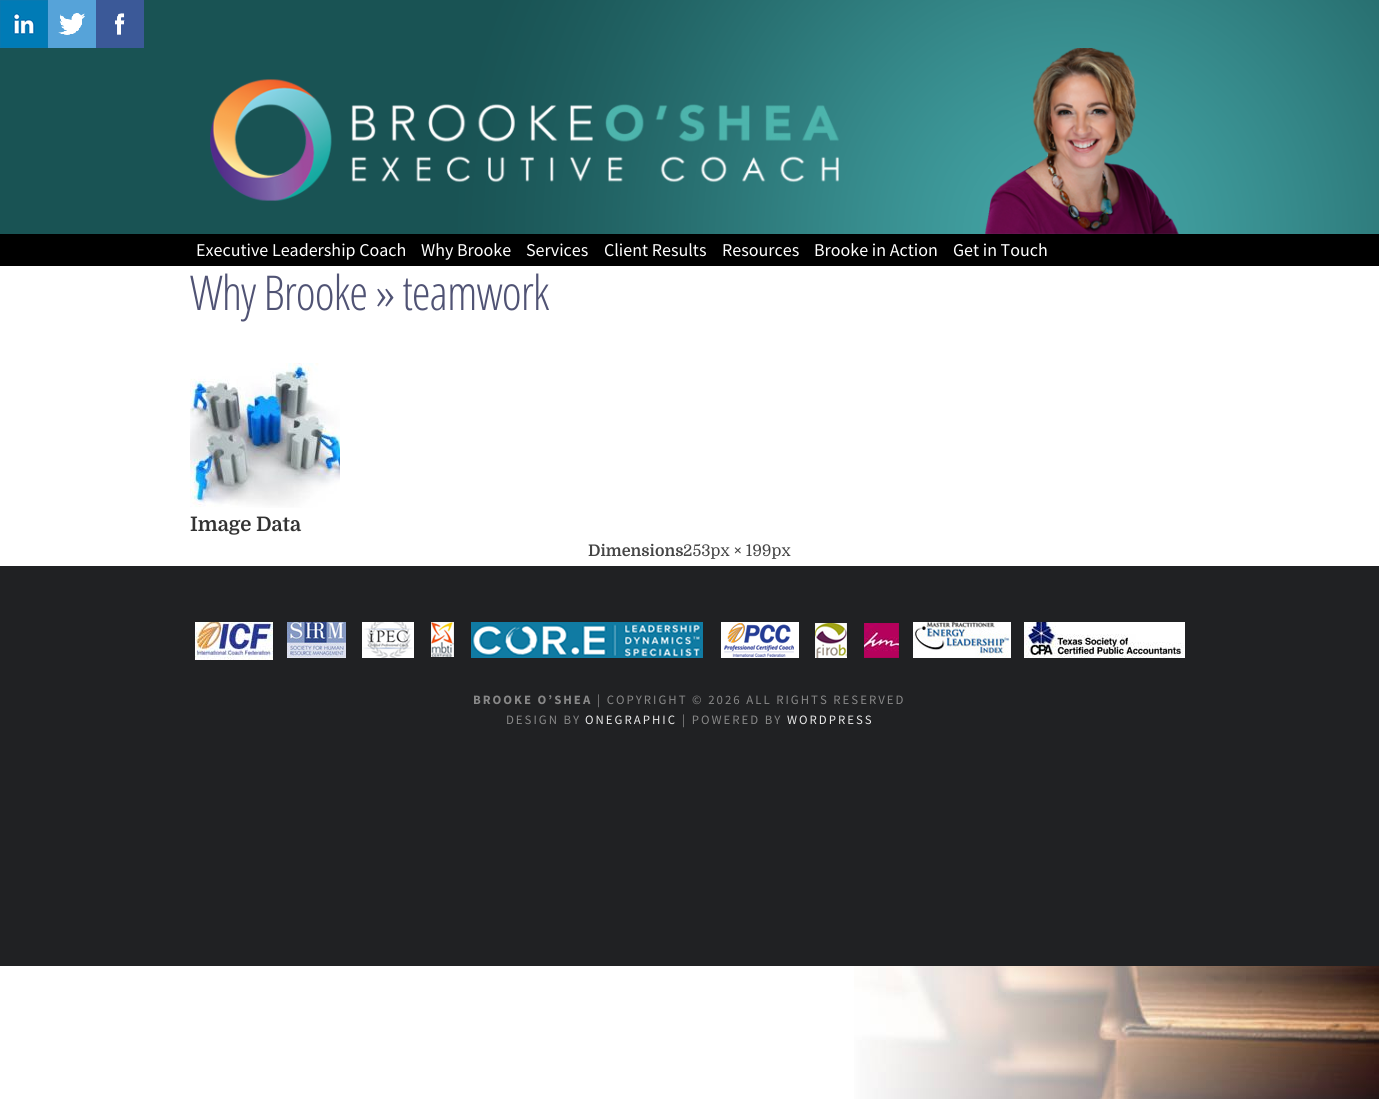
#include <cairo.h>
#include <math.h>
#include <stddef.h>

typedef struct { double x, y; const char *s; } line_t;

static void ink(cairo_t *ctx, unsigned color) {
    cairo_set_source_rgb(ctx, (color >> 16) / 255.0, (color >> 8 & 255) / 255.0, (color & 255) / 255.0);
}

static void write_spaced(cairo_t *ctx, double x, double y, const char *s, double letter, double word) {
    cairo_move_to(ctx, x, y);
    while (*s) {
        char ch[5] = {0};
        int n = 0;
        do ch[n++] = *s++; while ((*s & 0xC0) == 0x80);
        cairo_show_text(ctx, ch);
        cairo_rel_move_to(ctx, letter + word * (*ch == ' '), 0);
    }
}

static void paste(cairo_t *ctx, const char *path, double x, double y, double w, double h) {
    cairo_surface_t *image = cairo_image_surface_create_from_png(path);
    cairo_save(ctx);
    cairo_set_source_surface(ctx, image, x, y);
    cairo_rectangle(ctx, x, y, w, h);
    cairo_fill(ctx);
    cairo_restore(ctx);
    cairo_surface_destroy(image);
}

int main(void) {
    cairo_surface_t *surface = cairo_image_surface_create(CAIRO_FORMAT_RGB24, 1379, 1099);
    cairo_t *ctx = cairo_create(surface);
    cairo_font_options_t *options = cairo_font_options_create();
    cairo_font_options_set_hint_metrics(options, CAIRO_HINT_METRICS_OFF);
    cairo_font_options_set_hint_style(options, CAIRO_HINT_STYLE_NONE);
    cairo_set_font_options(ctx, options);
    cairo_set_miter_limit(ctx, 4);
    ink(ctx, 0xFFFFFF);
    cairo_paint(ctx);
    paste(ctx, "media/1.png", 854, 966, 525, 133);
    paste(ctx, "media/2.png", 0, 0, 1379, 234);
    paste(ctx, "media/3.png", 210, 48, 969, 186);
    paste(ctx, "media/4.png", 0, 0, 48, 48);
    paste(ctx, "media/5.png", 48, 0, 48, 48);
    paste(ctx, "media/6.png", 96, 0, 48, 48);
    ink(ctx, 0x000000);
    cairo_rectangle(ctx, 0, 234, 1379, 32);
    cairo_fill(ctx);
    cairo_select_font_face(ctx, "Source Sans Pro", CAIRO_FONT_SLANT_NORMAL, CAIRO_FONT_WEIGHT_NORMAL);
    cairo_set_font_size(ctx, 18);
    ink(ctx, 0xFFFFFF);
    {
        static const line_t items[] = {
            {196, 256, "Executive Leadership Coach"},
            {421, 256, "Why Brooke"},
            {526, 256, "Services"},
            {604, 256, "Client Results"},
            {722, 256, "Resources"},
            {814, 256, "Brooke in Action"},
            {953, 256, "Get in Touch"},
        };
        for (size_t i = 0; i < sizeof items / sizeof *items; i++) {
            cairo_move_to(ctx, items[i].x, items[i].y);
            cairo_show_text(ctx, items[i].s);
        }
    }
    cairo_select_font_face(ctx, "Open Sans Condensed Light", CAIRO_FONT_SLANT_NORMAL, CAIRO_FONT_WEIGHT_NORMAL);
    cairo_set_font_size(ctx, 48);
    ink(ctx, 0x505374);
    write_spaced(ctx, 190, 310, "Why Brooke » teamwork", -1, 0);
    paste(ctx, "media/7.png", 190, 363, 150, 145);
    cairo_select_font_face(ctx, "Domine", CAIRO_FONT_SLANT_NORMAL, CAIRO_FONT_WEIGHT_BOLD);
    cairo_set_font_size(ctx, 20);
    ink(ctx, 0x333333);
    cairo_move_to(ctx, 190, 531);
    cairo_show_text(ctx, "Image Data");
    cairo_set_font_size(ctx, 16);
    ink(ctx, 0x454545);
    cairo_move_to(ctx, 588, 556);
    cairo_show_text(ctx, "Dimensions");
    cairo_select_font_face(ctx, "Domine", CAIRO_FONT_SLANT_NORMAL, CAIRO_FONT_WEIGHT_NORMAL);
    cairo_move_to(ctx, 683, 556);
    cairo_show_text(ctx, "253px × 199px");
    ink(ctx, 0x202123);
    cairo_rectangle(ctx, 0, 566, 1379, 400);
    cairo_fill(ctx);
    paste(ctx, "media/8.png", 195, 622, 990, 38);
    cairo_select_font_face(ctx, "Source Sans Pro", CAIRO_FONT_SLANT_NORMAL, CAIRO_FONT_WEIGHT_BOLD);
    cairo_set_font_size(ctx, 12.8);
    ink(ctx, 0x888888);
    write_spaced(ctx, 473, 704, "BROOKE O’SHEA", 2, 0);
    cairo_select_font_face(ctx, "Source Sans Pro", CAIRO_FONT_SLANT_NORMAL, CAIRO_FONT_WEIGHT_NORMAL);
    write_spaced(ctx, 597, 704, "| COPYRIGHT © 2026 ALL RIGHTS RESERVED", 2, 0);
    write_spaced(ctx, 506, 724, "DESIGN BY", 2, 0);
    ink(ctx, 0xEBEBEB);
    write_spaced(ctx, 585, 724, "ONEGRAPHIC", 2, 0);
    ink(ctx, 0x888888);
    write_spaced(ctx, 682, 724, "| POWERED BY", 2, 0);
    ink(ctx, 0xEBEBEB);
    write_spaced(ctx, 787, 724, "WORDPRESS", 2, 0);
    cairo_surface_write_to_png(surface, "image.png");
    cairo_font_options_destroy(options);
    cairo_destroy(ctx);
    cairo_surface_destroy(surface);
    return 0;
}
